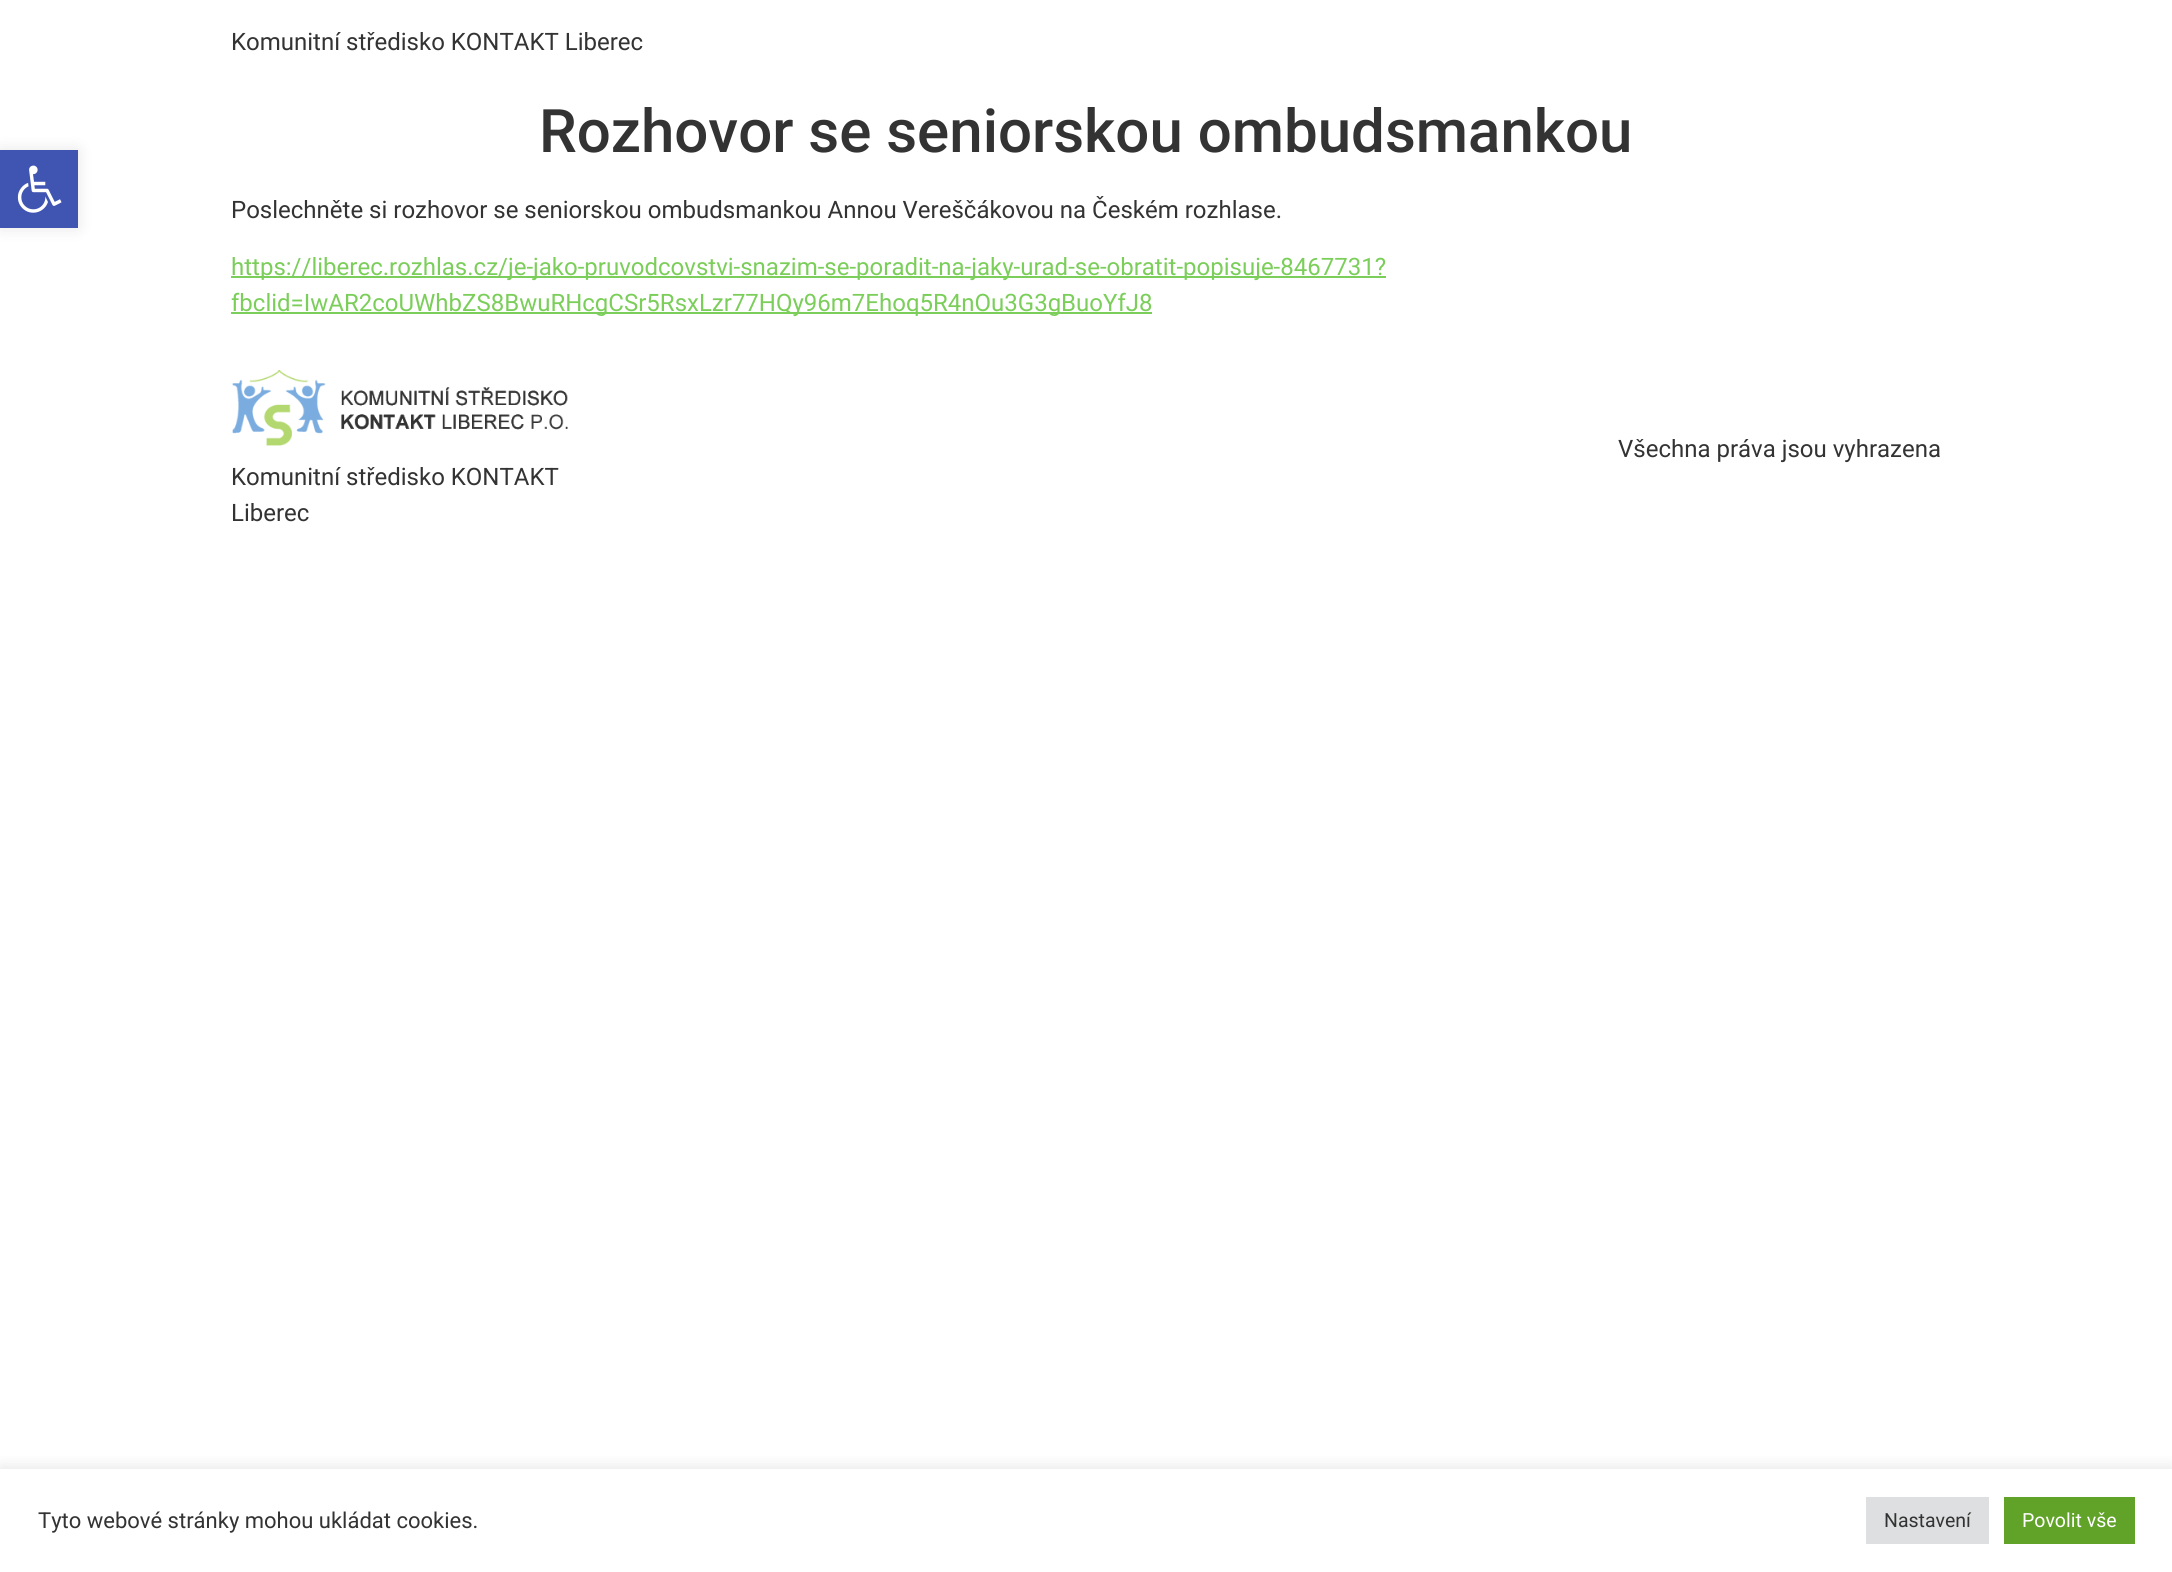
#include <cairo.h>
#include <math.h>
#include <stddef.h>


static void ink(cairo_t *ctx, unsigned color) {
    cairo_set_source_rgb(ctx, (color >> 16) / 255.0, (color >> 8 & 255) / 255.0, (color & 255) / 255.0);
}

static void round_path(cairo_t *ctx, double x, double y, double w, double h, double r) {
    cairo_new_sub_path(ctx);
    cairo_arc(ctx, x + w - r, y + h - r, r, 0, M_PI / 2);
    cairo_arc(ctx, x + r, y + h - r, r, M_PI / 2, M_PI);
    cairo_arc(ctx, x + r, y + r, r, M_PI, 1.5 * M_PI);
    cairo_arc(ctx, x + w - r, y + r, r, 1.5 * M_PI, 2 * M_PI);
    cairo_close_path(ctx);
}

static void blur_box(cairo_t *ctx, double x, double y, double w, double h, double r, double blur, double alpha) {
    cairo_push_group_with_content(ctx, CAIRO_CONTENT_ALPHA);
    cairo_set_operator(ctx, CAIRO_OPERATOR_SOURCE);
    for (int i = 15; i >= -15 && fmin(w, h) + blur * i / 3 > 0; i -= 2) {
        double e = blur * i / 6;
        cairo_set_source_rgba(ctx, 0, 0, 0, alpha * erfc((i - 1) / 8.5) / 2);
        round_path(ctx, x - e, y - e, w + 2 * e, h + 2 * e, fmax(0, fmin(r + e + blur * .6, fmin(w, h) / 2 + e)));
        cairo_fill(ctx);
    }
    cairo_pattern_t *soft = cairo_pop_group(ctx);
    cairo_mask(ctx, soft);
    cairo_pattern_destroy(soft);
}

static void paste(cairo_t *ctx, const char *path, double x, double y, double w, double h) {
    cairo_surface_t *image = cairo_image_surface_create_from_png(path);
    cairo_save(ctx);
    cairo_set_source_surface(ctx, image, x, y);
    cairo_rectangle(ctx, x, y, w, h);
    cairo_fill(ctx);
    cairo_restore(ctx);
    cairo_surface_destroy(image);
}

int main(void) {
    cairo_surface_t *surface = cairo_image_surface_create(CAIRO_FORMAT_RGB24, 2172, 1572);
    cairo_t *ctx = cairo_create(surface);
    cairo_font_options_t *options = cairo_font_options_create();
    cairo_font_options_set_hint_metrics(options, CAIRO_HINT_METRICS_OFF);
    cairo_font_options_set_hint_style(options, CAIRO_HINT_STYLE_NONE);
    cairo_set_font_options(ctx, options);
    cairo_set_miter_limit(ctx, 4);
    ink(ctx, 0xFFFFFF);
    cairo_paint(ctx);
    cairo_select_font_face(ctx, "Roboto", CAIRO_FONT_SLANT_NORMAL, CAIRO_FONT_WEIGHT_NORMAL);
    cairo_set_font_size(ctx, 24);
    ink(ctx, 0x333333);
    cairo_move_to(ctx, 231, 50);
    cairo_show_text(ctx, "Komunitní středisko KONTAKT Liberec");
    ink(ctx, 0x000000);
    blur_box(ctx, 0, 150, 78, 78, 0, 7.5, 0.1);
    ink(ctx, 0x4054B2);
    cairo_rectangle(ctx, 0, 150, 78, 78);
    cairo_fill(ctx);
    paste(ctx, "media/1.png", 17, 165, 45, 48);
    cairo_select_font_face(ctx, "Roboto Medium", CAIRO_FONT_SLANT_NORMAL, CAIRO_FONT_WEIGHT_NORMAL);
    cairo_set_font_size(ctx, 60);
    ink(ctx, 0x333333);
    cairo_move_to(ctx, 539, 152);
    cairo_show_text(ctx, "Rozhovor se seniorskou ombudsmankou");
    cairo_select_font_face(ctx, "Roboto", CAIRO_FONT_SLANT_NORMAL, CAIRO_FONT_WEIGHT_NORMAL);
    cairo_set_font_size(ctx, 24);
    cairo_move_to(ctx, 231, 218);
    cairo_show_text(ctx, "Poslechněte si rozhovor se seniorskou ombudsmankou Annou Vereščákovou na Českém rozhlase.");
    ink(ctx, 0x7BCE5A);
    cairo_rectangle(ctx, 231, 276, 1155, 2);
    cairo_fill(ctx);
    cairo_move_to(ctx, 231, 275);
    cairo_show_text(ctx, "https://liberec.rozhlas.cz/je-jako-pruvodcovstvi-snazim-se-poradit-na-jaky-urad-se-obratit-popisuje-8467731?");
    cairo_rectangle(ctx, 231, 312, 921, 2);
    cairo_fill(ctx);
    cairo_move_to(ctx, 231, 311);
    cairo_show_text(ctx, "fbclid=IwAR2coUWhbZS8BwuRHcgCSr5RsxLzr77HQy96m7Ehoq5R4nOu3G3gBuoYfJ8");
    ink(ctx, 0x333333);
    cairo_move_to(ctx, 1618, 457);
    cairo_show_text(ctx, "Všechna práva jsou vyhrazena");
    paste(ctx, "media/2.png", 232, 370, 336, 76);
    cairo_move_to(ctx, 231, 485);
    cairo_show_text(ctx, "Komunitní středisko KONTAKT");
    cairo_move_to(ctx, 231, 521);
    cairo_show_text(ctx, "Liberec");
    cairo_save(ctx);
    cairo_rectangle(ctx, 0, 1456, 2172, 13);
    cairo_clip(ctx);
    ink(ctx, 0xACABAB);
    blur_box(ctx, 0, 1467, 2172, 104, 0, 7.5, 0.3);
    cairo_restore(ctx);
    cairo_set_font_size(ctx, 22);
    cairo_move_to(ctx, 38, 1528);
    cairo_show_text(ctx, "Tyto webové stránky mohou ukládat cookies.");
    ink(ctx, 0xDEDFE0);
    cairo_rectangle(ctx, 1866, 1497, 123, 47);
    cairo_fill(ctx);
    cairo_set_font_size(ctx, 19.5);
    ink(ctx, 0x333333);
    cairo_move_to(ctx, 1884, 1527);
    cairo_show_text(ctx, "Nastavení");
    ink(ctx, 0x61A229);
    cairo_rectangle(ctx, 2004, 1497, 131, 47);
    cairo_fill(ctx);
    ink(ctx, 0xFFFFFF);
    cairo_move_to(ctx, 2022, 1527);
    cairo_show_text(ctx, "Povolit vše");
    cairo_surface_write_to_png(surface, "image.png");
    cairo_font_options_destroy(options);
    cairo_destroy(ctx);
    cairo_surface_destroy(surface);
    return 0;
}
